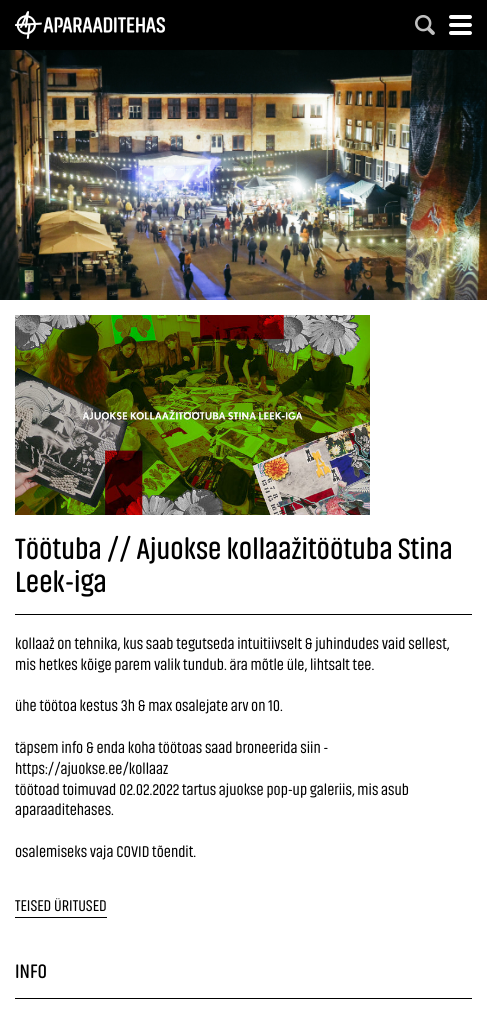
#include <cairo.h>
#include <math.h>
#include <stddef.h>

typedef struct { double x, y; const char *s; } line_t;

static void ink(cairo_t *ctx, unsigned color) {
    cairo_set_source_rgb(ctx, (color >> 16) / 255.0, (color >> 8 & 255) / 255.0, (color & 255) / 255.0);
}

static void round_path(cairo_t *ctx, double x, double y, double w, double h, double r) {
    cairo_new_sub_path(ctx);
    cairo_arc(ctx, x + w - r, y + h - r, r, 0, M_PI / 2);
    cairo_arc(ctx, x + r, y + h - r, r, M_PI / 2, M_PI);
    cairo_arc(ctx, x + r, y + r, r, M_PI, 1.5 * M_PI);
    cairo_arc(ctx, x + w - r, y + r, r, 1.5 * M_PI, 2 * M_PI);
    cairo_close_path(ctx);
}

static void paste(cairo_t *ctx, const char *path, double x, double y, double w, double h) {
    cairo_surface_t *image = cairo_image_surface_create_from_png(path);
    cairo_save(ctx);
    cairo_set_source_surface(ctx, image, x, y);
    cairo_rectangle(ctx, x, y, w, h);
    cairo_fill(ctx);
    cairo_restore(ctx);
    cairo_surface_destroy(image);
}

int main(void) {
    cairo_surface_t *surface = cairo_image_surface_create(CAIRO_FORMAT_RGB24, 487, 1030);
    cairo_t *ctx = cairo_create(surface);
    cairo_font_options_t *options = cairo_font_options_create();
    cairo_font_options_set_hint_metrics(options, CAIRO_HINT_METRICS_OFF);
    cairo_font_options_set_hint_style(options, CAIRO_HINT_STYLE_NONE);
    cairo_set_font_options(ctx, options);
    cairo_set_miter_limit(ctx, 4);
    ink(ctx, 0xFFFFFF);
    cairo_paint(ctx);
    ink(ctx, 0x000000);
    cairo_rectangle(ctx, 0, 0, 487, 50);
    cairo_fill(ctx);
    paste(ctx, "media/1.png", 15, 11, 150, 28);
    paste(ctx, "media/2.png", 415, 15, 20, 20);
    ink(ctx, 0xFFFFFF);
    round_path(ctx, 449, 15, 23, 4, 2);
    cairo_fill(ctx);
    round_path(ctx, 449, 23, 23, 4, 2);
    cairo_fill(ctx);
    round_path(ctx, 449, 31, 23, 4, 2);
    cairo_fill(ctx);
    paste(ctx, "media/3.png", 0, 50, 487, 250);
    paste(ctx, "media/4.png", 15, 315, 355, 200);
    ink(ctx, 0x000000);
    cairo_rectangle(ctx, 15, 614, 457, 1);
    cairo_fill(ctx);
    cairo_select_font_face(ctx, "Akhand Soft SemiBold", CAIRO_FONT_SLANT_NORMAL, CAIRO_FONT_WEIGHT_NORMAL);
    cairo_set_font_size(ctx, 30);
    cairo_move_to(ctx, 15, 559);
    cairo_show_text(ctx, "Töötuba // Ajuokse kollaažitöötuba Stina");
    cairo_move_to(ctx, 15, 592);
    cairo_show_text(ctx, "Leek-iga");
    cairo_select_font_face(ctx, "Akhand Soft", CAIRO_FONT_SLANT_NORMAL, CAIRO_FONT_WEIGHT_NORMAL);
    cairo_set_font_size(ctx, 16);
    {
        static const line_t items[] = {
            {15, 649, "kollaaž on tehnika, kus saab tegutseda intuitiivselt & juhindudes vaid sellest,"},
            {15, 670, "mis hetkes kõige parem valik tundub. ära mõtle üle, lihtsalt tee."},
            {15, 711, "ühe töötoa kestus 3h & max osalejate arv on 10."},
            {15, 753, "täpsem info & enda koha töötoas saad broneerida siin -"},
            {15, 774, "https://ajuokse.ee/kollaaz"},
            {15, 795, "töötoad toimuvad 02.02.2022 tartus ajuokse pop-up galeriis, mis asub"},
            {15, 815, "aparaaditehases."},
            {15, 857, "osalemiseks vaja COVID tõendit."},
        };
        for (size_t i = 0; i < sizeof items / sizeof *items; i++) {
            cairo_move_to(ctx, items[i].x, items[i].y);
            cairo_show_text(ctx, items[i].s);
        }
    }
    cairo_rectangle(ctx, 15, 917, 92, 1);
    cairo_fill(ctx);
    cairo_move_to(ctx, 15, 911);
    cairo_show_text(ctx, "TEISED ÜRITUSED");
    cairo_rectangle(ctx, 15, 998, 457, 1);
    cairo_fill(ctx);
    cairo_select_font_face(ctx, "Akhand Soft SemiBold", CAIRO_FONT_SLANT_NORMAL, CAIRO_FONT_WEIGHT_NORMAL);
    cairo_set_font_size(ctx, 20);
    cairo_move_to(ctx, 15, 978);
    cairo_show_text(ctx, "INFO");
    cairo_surface_write_to_png(surface, "image.png");
    cairo_font_options_destroy(options);
    cairo_destroy(ctx);
    cairo_surface_destroy(surface);
    return 0;
}
